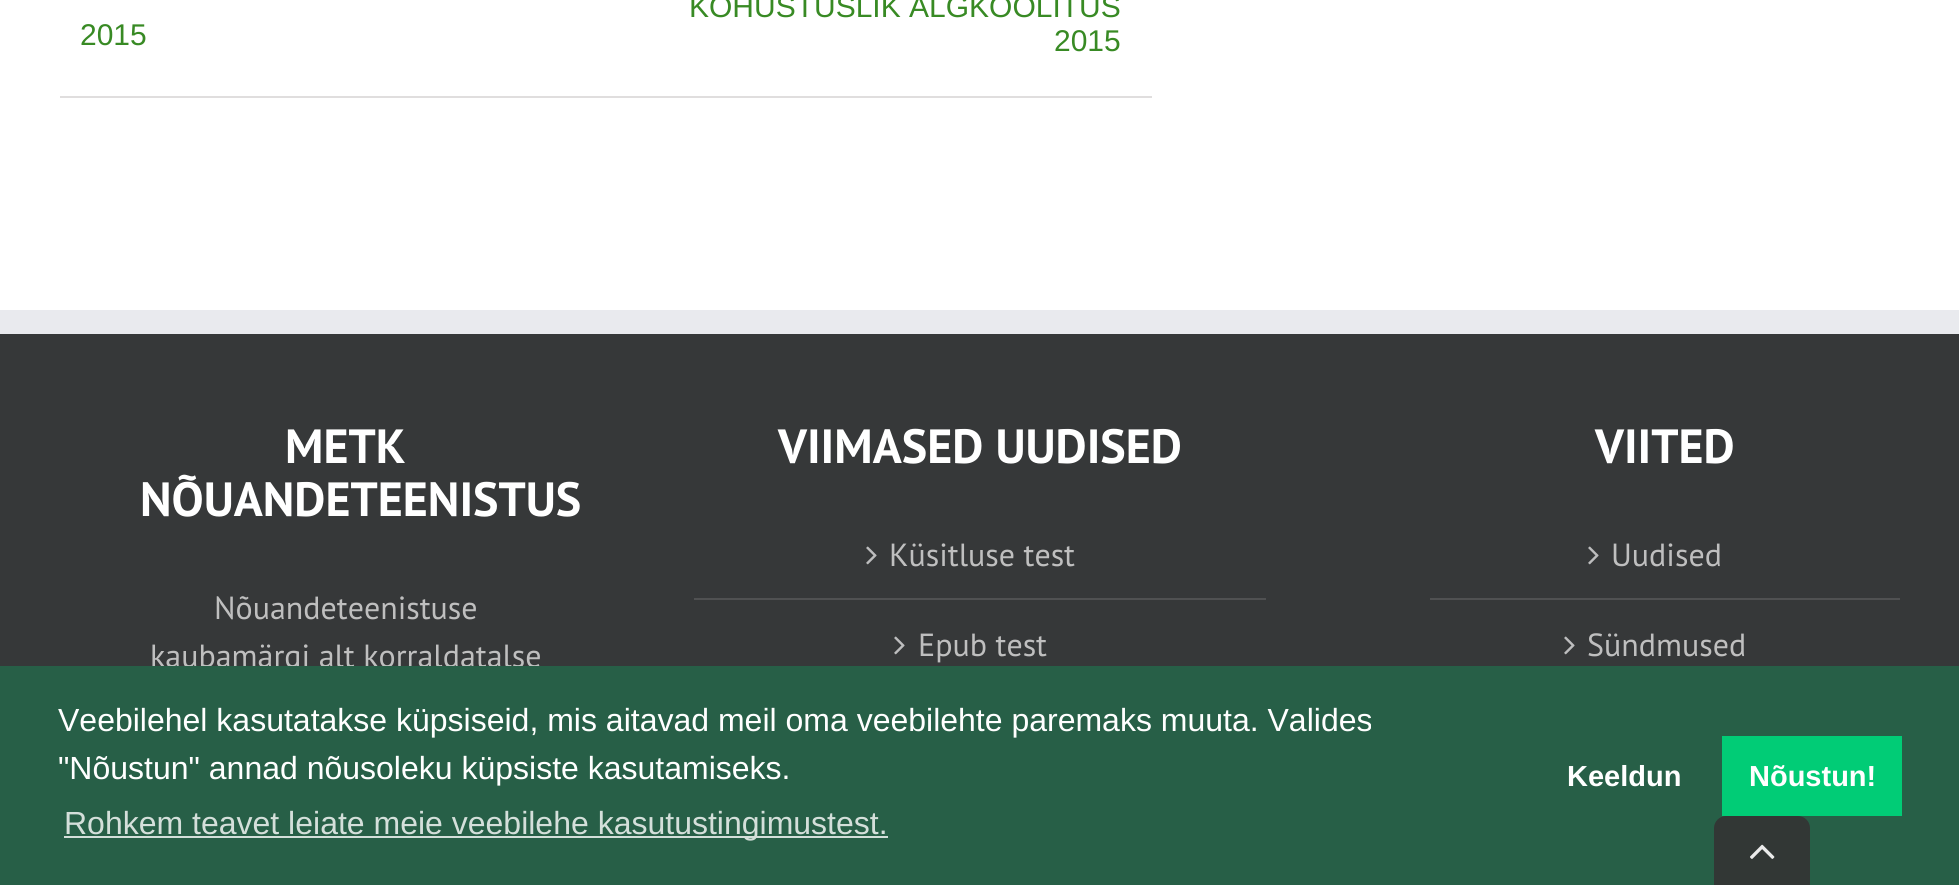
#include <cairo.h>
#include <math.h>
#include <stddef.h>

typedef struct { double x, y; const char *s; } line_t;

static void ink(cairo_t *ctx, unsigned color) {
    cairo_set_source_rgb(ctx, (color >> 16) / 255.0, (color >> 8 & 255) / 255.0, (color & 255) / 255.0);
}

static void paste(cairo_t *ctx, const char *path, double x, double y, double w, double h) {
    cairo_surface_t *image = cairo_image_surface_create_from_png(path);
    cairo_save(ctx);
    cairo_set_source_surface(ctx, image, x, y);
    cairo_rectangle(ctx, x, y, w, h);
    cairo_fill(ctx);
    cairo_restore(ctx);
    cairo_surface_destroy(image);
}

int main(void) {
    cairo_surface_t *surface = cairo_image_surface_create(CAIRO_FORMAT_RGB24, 1959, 885);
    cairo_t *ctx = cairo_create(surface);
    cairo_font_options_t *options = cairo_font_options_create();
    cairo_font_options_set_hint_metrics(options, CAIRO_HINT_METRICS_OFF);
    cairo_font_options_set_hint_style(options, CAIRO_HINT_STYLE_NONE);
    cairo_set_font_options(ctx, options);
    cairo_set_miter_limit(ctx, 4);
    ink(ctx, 0xFFFFFF);
    cairo_paint(ctx);
    ink(ctx, 0xE0DEDE);
    cairo_rectangle(ctx, 60, 96, 1092, 2);
    cairo_fill(ctx);
    cairo_select_font_face(ctx, "Liberation Sans", CAIRO_FONT_SLANT_NORMAL, CAIRO_FONT_WEIGHT_NORMAL);
    cairo_set_font_size(ctx, 30);
    ink(ctx, 0x388A24);
    {
        static const line_t items[] = {
            {80, 45, "2015"},
            {689, 17, "KOHUSTUSLIK ALGKOOLITUS"},
            {1054, 51, "2015"},
        };
        for (size_t i = 0; i < sizeof items / sizeof *items; i++) {
            cairo_move_to(ctx, items[i].x, items[i].y);
            cairo_show_text(ctx, items[i].s);
        }
    }
    ink(ctx, 0x363839);
    cairo_rectangle(ctx, 0, 334, 1959, 332);
    cairo_fill(ctx);
    ink(ctx, 0xE9EAEE);
    cairo_rectangle(ctx, 0, 310, 1959, 24);
    cairo_fill(ctx);
    cairo_select_font_face(ctx, "PT Sans", CAIRO_FONT_SLANT_NORMAL, CAIRO_FONT_WEIGHT_BOLD);
    cairo_set_font_size(ctx, 48);
    ink(ctx, 0xFFFFFF);
    cairo_move_to(ctx, 285, 463);
    cairo_show_text(ctx, "METK");
    cairo_move_to(ctx, 140, 516);
    cairo_show_text(ctx, "NÕUANDETEENISTUS");
    cairo_select_font_face(ctx, "PT Sans", CAIRO_FONT_SLANT_NORMAL, CAIRO_FONT_WEIGHT_NORMAL);
    cairo_set_font_size(ctx, 32);
    ink(ctx, 0xBFBFBF);
    cairo_move_to(ctx, 214, 619);
    cairo_show_text(ctx, "Nõuandeteenistuse");
    cairo_move_to(ctx, 150, 667);
    cairo_show_text(ctx, "kaubamärgi alt korraldatalse");
    cairo_select_font_face(ctx, "PT Sans", CAIRO_FONT_SLANT_NORMAL, CAIRO_FONT_WEIGHT_BOLD);
    cairo_set_font_size(ctx, 48);
    ink(ctx, 0xFFFFFF);
    cairo_move_to(ctx, 778, 463);
    cairo_show_text(ctx, "VIIMASED UUDISED");
    ink(ctx, 0x505152);
    cairo_rectangle(ctx, 694, 598, 572, 2);
    cairo_fill(ctx);
    paste(ctx, "media/1.png", 866, 546, 11, 19);
    cairo_select_font_face(ctx, "PT Sans", CAIRO_FONT_SLANT_NORMAL, CAIRO_FONT_WEIGHT_NORMAL);
    cairo_set_font_size(ctx, 32);
    ink(ctx, 0xBFBFBF);
    cairo_move_to(ctx, 889, 566);
    cairo_show_text(ctx, "Küsitluse test");
    paste(ctx, "media/1.png", 894, 636, 11, 19);
    cairo_move_to(ctx, 918, 656);
    cairo_show_text(ctx, "Epub test");
    cairo_select_font_face(ctx, "PT Sans", CAIRO_FONT_SLANT_NORMAL, CAIRO_FONT_WEIGHT_BOLD);
    cairo_set_font_size(ctx, 48);
    ink(ctx, 0xFFFFFF);
    cairo_move_to(ctx, 1595, 463);
    cairo_show_text(ctx, "VIITED");
    ink(ctx, 0x505152);
    cairo_rectangle(ctx, 1430, 598, 470, 2);
    cairo_fill(ctx);
    paste(ctx, "media/1.png", 1588, 546, 11, 19);
    cairo_select_font_face(ctx, "PT Sans", CAIRO_FONT_SLANT_NORMAL, CAIRO_FONT_WEIGHT_NORMAL);
    cairo_set_font_size(ctx, 32);
    ink(ctx, 0xBFBFBF);
    cairo_move_to(ctx, 1611, 566);
    cairo_show_text(ctx, "Uudised");
    paste(ctx, "media/1.png", 1564, 636, 11, 19);
    cairo_move_to(ctx, 1587, 656);
    cairo_show_text(ctx, "Sündmused");
    ink(ctx, 0x275F47);
    cairo_rectangle(ctx, 0, 666, 1959, 219);
    cairo_fill(ctx);
    cairo_select_font_face(ctx, "Liberation Sans", CAIRO_FONT_SLANT_NORMAL, CAIRO_FONT_WEIGHT_NORMAL);
    ink(ctx, 0xFFFFFF);
    cairo_move_to(ctx, 58, 731);
    cairo_show_text(ctx, "Veebilehel kasutatakse küpsiseid, mis aitavad meil oma veebilehte paremaks muuta. Valides");
    cairo_move_to(ctx, 58, 779);
    cairo_show_text(ctx, "\"Nõustun\" annad nõusoleku küpsiste kasutamiseks.");
    ink(ctx, 0xD4DFDA);
    cairo_rectangle(ctx, 64, 836, 824, 2);
    cairo_fill(ctx);
    cairo_move_to(ctx, 64, 834);
    cairo_show_text(ctx, "Rohkem teavet leiate meie veebilehe kasutustingimustest.");
    cairo_select_font_face(ctx, "Liberation Sans", CAIRO_FONT_SLANT_NORMAL, CAIRO_FONT_WEIGHT_BOLD);
    cairo_set_font_size(ctx, 29);
    ink(ctx, 0xFFFFFF);
    cairo_move_to(ctx, 1567, 786);
    cairo_show_text(ctx, "Keeldun");
    ink(ctx, 0x01CC76);
    cairo_rectangle(ctx, 1722, 736, 180, 80);
    cairo_fill(ctx);
    ink(ctx, 0xFFFFFF);
    cairo_move_to(ctx, 1749, 786);
    cairo_show_text(ctx, "Nõustun!");
    ink(ctx, 0x323735);
    cairo_new_path(ctx);
    cairo_move_to(ctx, 1726, 816);
    cairo_line_to(ctx, 1798, 816);
    cairo_curve_to(ctx, 1804.5, 816, 1810, 821.5, 1810, 828);
    cairo_line_to(ctx, 1810, 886);
    cairo_line_to(ctx, 1714, 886);
    cairo_line_to(ctx, 1714, 828);
    cairo_curve_to(ctx, 1714, 821.5, 1719.5, 816, 1726, 816);
    cairo_close_path(ctx);
    cairo_fill(ctx);
    paste(ctx, "media/2.png", 1750, 844, 25, 15);
    cairo_surface_write_to_png(surface, "image.png");
    cairo_font_options_destroy(options);
    cairo_destroy(ctx);
    cairo_surface_destroy(surface);
    return 0;
}
